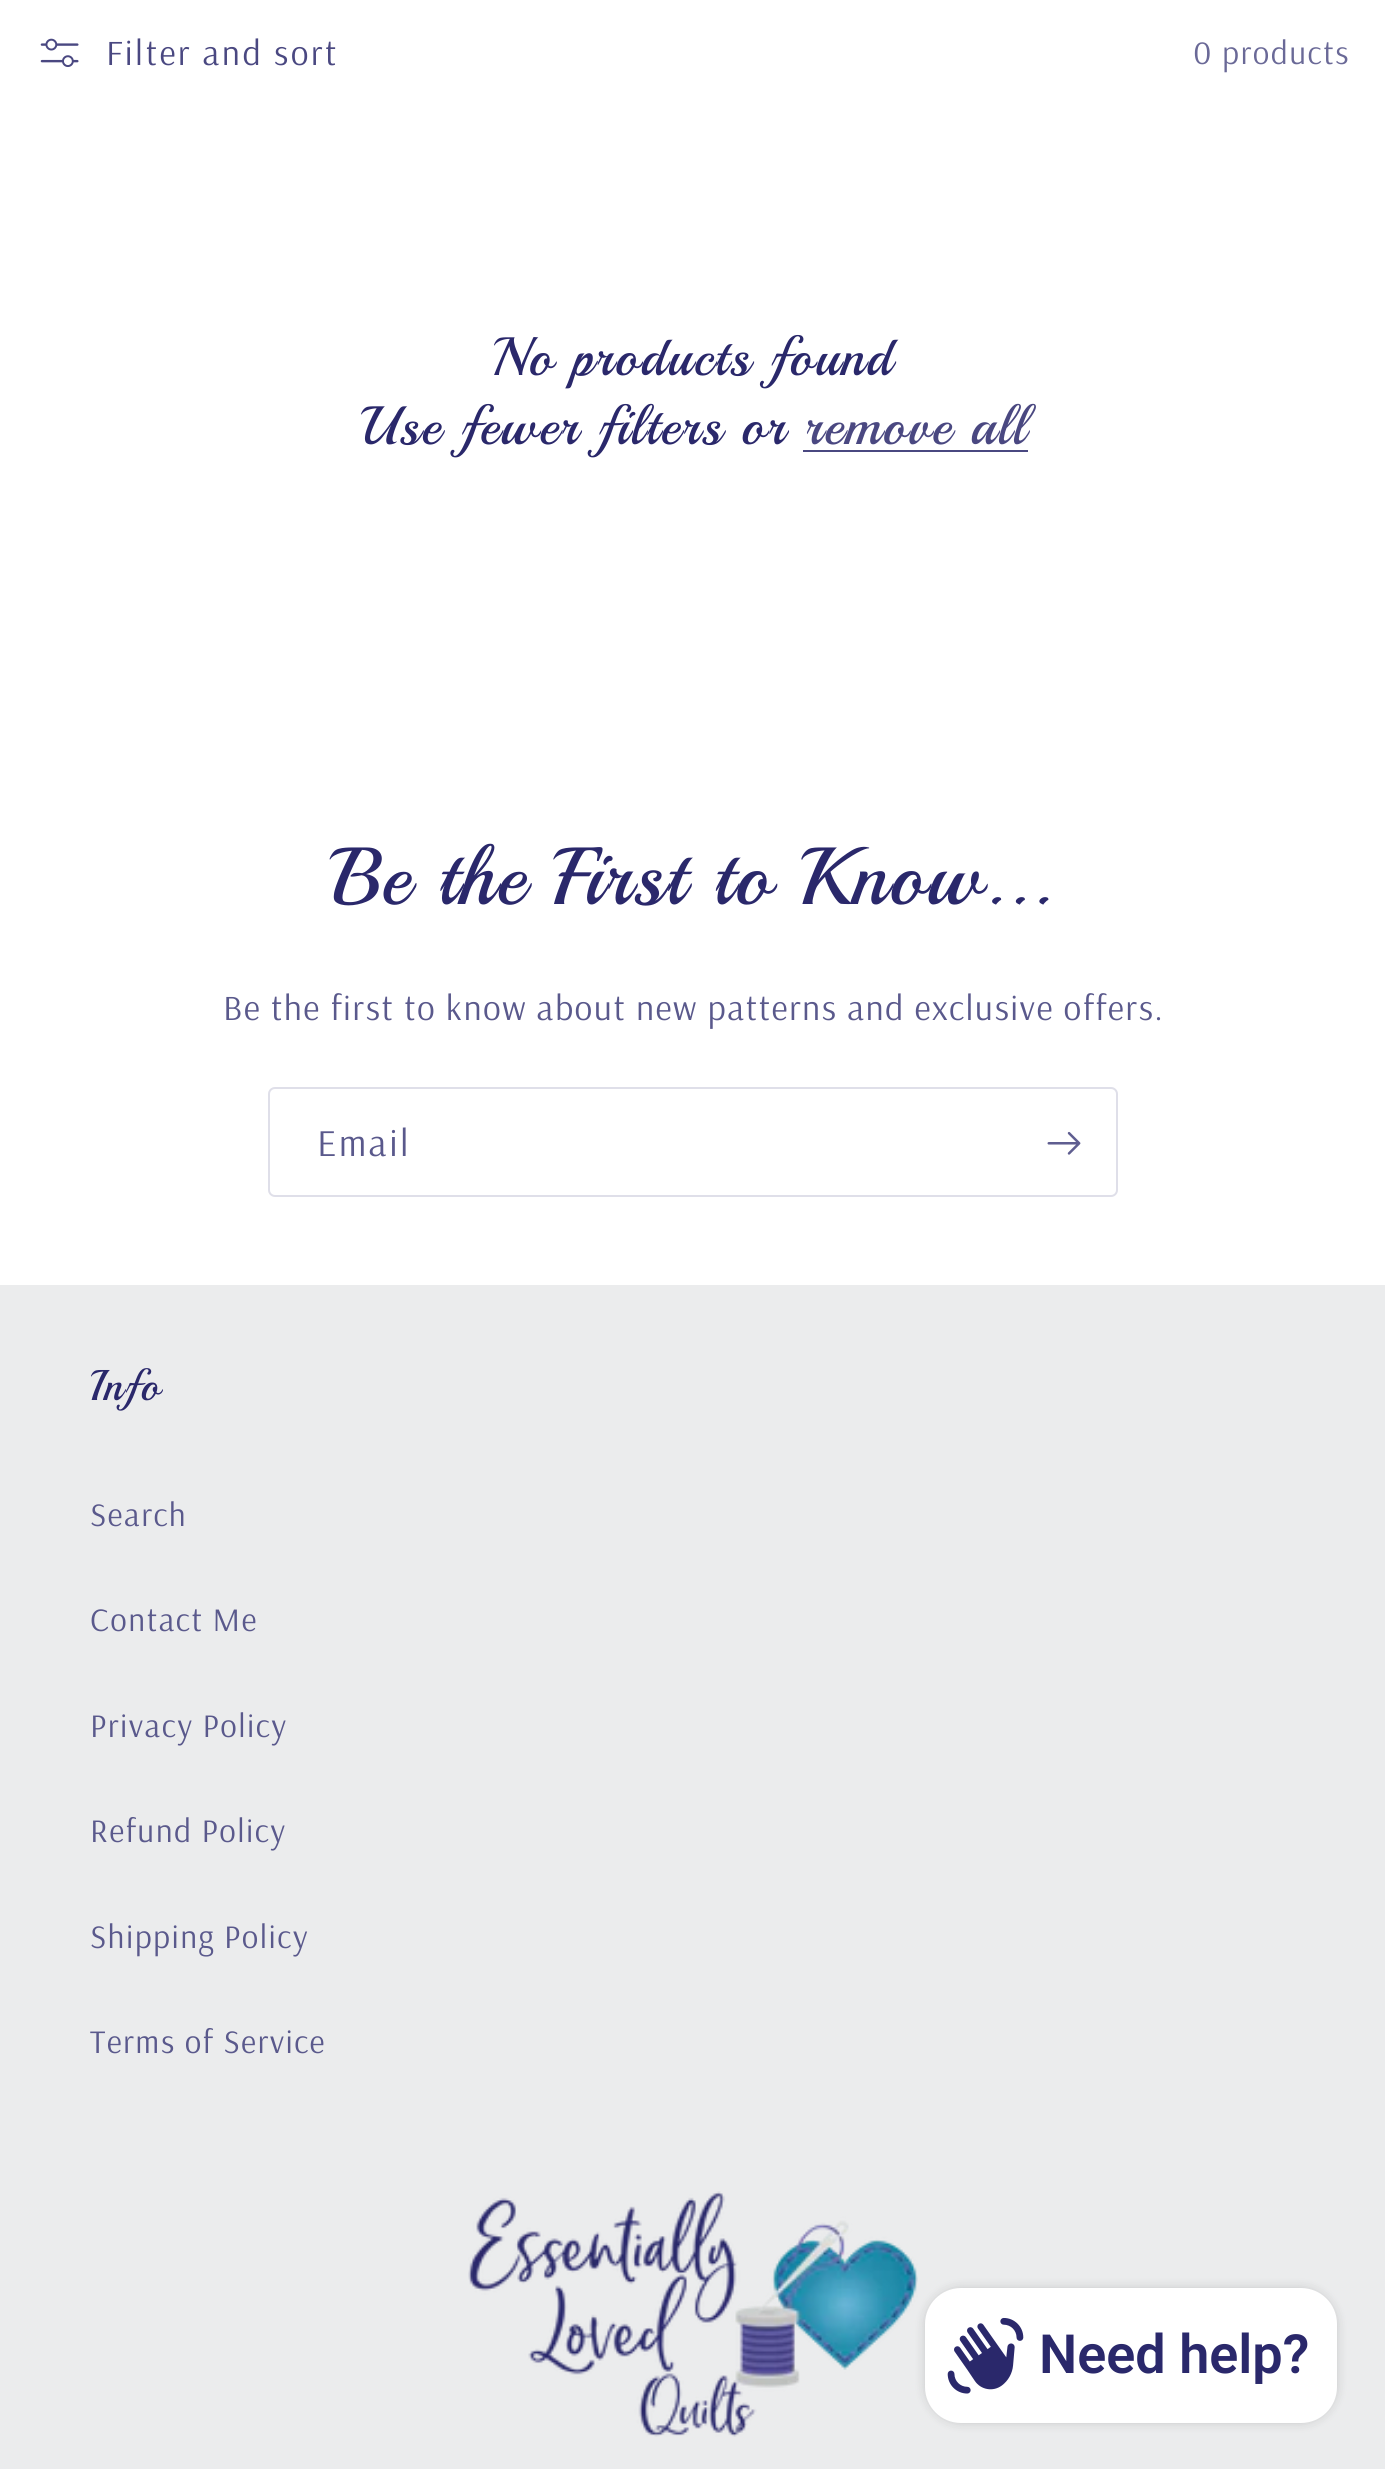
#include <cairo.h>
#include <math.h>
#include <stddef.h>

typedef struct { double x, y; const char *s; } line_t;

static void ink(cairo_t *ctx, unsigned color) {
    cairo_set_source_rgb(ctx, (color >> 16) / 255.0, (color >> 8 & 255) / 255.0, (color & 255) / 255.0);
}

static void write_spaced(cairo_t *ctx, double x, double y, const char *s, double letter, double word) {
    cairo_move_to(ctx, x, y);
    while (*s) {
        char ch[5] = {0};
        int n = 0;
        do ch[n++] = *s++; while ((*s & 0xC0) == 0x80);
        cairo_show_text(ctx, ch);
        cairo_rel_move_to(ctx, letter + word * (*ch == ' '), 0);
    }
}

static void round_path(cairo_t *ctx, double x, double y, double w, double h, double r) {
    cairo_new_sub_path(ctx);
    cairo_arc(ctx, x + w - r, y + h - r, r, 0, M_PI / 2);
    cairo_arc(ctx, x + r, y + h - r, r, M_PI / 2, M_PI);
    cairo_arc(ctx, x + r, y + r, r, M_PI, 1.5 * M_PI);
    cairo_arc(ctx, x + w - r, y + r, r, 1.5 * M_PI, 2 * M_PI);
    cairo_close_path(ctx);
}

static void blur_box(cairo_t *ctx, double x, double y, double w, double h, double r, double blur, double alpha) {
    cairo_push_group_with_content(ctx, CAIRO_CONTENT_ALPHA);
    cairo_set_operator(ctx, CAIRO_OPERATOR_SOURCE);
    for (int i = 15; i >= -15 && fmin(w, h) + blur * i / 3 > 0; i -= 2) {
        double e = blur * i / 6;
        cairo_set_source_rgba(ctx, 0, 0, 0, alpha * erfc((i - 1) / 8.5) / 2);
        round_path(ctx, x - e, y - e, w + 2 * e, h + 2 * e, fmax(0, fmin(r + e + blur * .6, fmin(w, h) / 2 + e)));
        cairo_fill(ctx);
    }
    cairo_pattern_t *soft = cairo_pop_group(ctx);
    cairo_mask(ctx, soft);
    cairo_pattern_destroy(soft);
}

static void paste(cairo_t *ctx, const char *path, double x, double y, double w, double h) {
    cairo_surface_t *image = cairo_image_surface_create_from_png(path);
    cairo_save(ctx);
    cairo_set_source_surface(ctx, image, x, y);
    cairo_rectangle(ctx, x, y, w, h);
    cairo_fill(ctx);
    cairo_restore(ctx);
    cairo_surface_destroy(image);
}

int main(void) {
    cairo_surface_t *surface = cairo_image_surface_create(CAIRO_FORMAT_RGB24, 1385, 2469);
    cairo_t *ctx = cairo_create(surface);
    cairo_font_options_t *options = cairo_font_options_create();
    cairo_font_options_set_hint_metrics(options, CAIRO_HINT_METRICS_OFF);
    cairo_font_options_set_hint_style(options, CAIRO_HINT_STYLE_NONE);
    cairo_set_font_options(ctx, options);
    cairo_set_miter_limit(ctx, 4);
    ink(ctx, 0xFFFFFF);
    cairo_paint(ctx);
    paste(ctx, "media/1.png", 40, 38, 39, 29);
    cairo_select_font_face(ctx, "Arsenal", CAIRO_FONT_SLANT_NORMAL, CAIRO_FONT_WEIGHT_NORMAL);
    cairo_set_font_size(ctx, 35.45);
    ink(ctx, 0x4A4881);
    write_spaced(ctx, 106, 65, "Filter and sort", 2.4, 0);
    cairo_set_font_size(ctx, 33);
    ink(ctx, 0x6A6997);
    write_spaced(ctx, 1193, 64, "0 products", 1.42, 0);
    cairo_select_font_face(ctx, "Playball", CAIRO_FONT_SLANT_NORMAL, CAIRO_FONT_WEIGHT_NORMAL);
    cairo_set_font_size(ctx, 54);
    ink(ctx, 0x2A286B);
    write_spaced(ctx, 492, 375, "No products found", 1.6, 0);
    write_spaced(ctx, 359, 444, "Use fewer filters or", 1.6, 0);
    ink(ctx, 0x4A4881);
    write_spaced(ctx, 804, 444, "remove all", 1.6, 0);
    cairo_rectangle(ctx, 803, 450, 225, 2);
    cairo_fill(ctx);
    cairo_set_font_size(ctx, 81);
    ink(ctx, 0x2A286B);
    write_spaced(ctx, 332, 904, "Be the First to Know...", 1.6, 0);
    cairo_select_font_face(ctx, "Arsenal", CAIRO_FONT_SLANT_NORMAL, CAIRO_FONT_WEIGHT_NORMAL);
    cairo_set_font_size(ctx, 35.45);
    ink(ctx, 0x5A598C);
    write_spaced(ctx, 223, 1020, "Be the first to know about new patterns and exclusive offers.", 1.42, 0);
    round_path(ctx, 269, 1088, 848, 108, 6);
    cairo_set_source_rgba(ctx, 0.165, 0.157, 0.42, 0.15);
    cairo_stroke(ctx);
    cairo_set_font_size(ctx, 38);
    ink(ctx, 0x5A598C);
    write_spaced(ctx, 317, 1156, "Email", 2.4, 0);
    paste(ctx, "media/2.png", 1047, 1131, 34, 24);
    ink(ctx, 0xEBECED);
    cairo_rectangle(ctx, 0, 1285, 1385, 1184);
    cairo_fill(ctx);
    cairo_select_font_face(ctx, "Playball", CAIRO_FONT_SLANT_NORMAL, CAIRO_FONT_WEIGHT_NORMAL);
    cairo_set_font_size(ctx, 43);
    ink(ctx, 0x2A286B);
    write_spaced(ctx, 90, 1400, "Info", 1.6, 0);
    cairo_select_font_face(ctx, "Arsenal", CAIRO_FONT_SLANT_NORMAL, CAIRO_FONT_WEIGHT_NORMAL);
    cairo_set_font_size(ctx, 33);
    ink(ctx, 0x5A598C);
    {
        static const line_t items[] = {
            {90, 1526, "Search"},
            {90, 1631, "Contact Me"},
            {90, 1737, "Privacy Policy"},
            {90, 1842, "Refund Policy"},
            {90, 1948, "Shipping Policy"},
            {90, 2053, "Terms of Service"},
        };
        for (size_t i = 0; i < sizeof items / sizeof *items; i++) {
            write_spaced(ctx, items[i].x, items[i].y, items[i].s, 1.42, 0);
        }
    }
    paste(ctx, "media/3.png", 468, 2191, 450, 246);
    ink(ctx, 0x000000);
    blur_box(ctx, 925, 2288, 412, 135, 36, 5.5, 0.15);
    ink(ctx, 0xFFFFFF);
    round_path(ctx, 925, 2288, 412, 135, 36);
    cairo_fill(ctx);
    paste(ctx, "media/4.png", 947, 2317, 77, 77);
    cairo_select_font_face(ctx, "Roboto SemiBold", CAIRO_FONT_SLANT_NORMAL, CAIRO_FONT_WEIGHT_NORMAL);
    cairo_set_font_size(ctx, 54);
    ink(ctx, 0x2A286B);
    cairo_move_to(ctx, 1039, 2373);
    cairo_show_text(ctx, "Need help?");
    cairo_surface_write_to_png(surface, "image.png");
    cairo_font_options_destroy(options);
    cairo_destroy(ctx);
    cairo_surface_destroy(surface);
    return 0;
}
